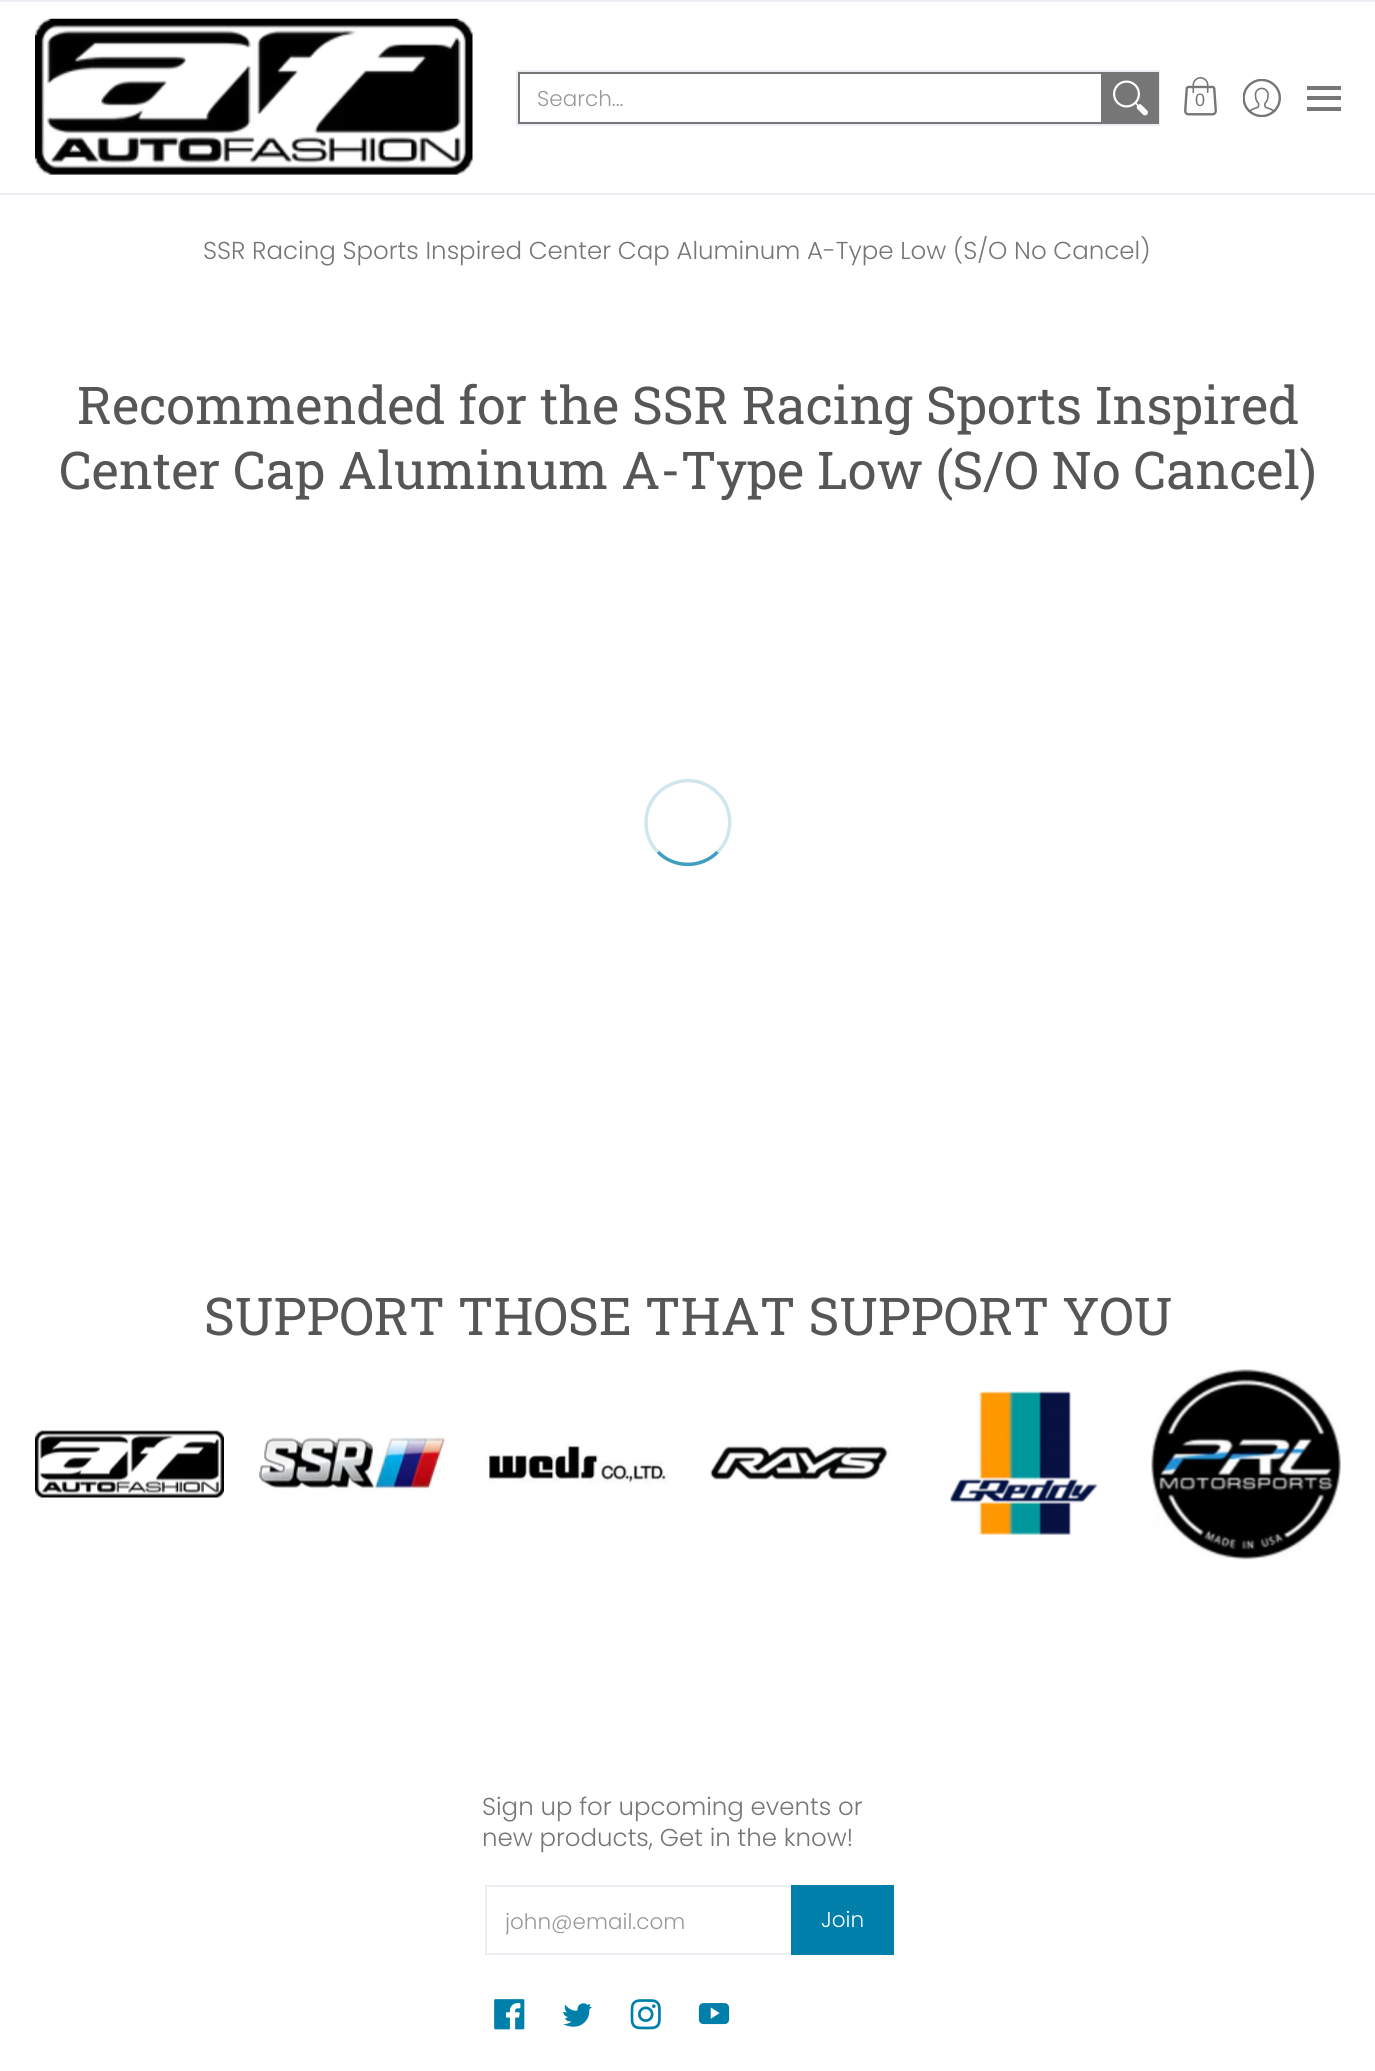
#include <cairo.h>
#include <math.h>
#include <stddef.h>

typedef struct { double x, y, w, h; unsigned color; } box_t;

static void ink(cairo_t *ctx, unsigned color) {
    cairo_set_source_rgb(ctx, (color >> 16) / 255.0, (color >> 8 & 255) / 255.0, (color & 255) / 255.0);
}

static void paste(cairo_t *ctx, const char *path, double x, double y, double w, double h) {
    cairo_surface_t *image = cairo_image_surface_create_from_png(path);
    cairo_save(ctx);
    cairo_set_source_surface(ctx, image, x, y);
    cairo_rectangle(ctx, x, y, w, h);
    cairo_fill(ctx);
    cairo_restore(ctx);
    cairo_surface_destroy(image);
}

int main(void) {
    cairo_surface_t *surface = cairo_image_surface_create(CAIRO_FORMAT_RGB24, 1375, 2071);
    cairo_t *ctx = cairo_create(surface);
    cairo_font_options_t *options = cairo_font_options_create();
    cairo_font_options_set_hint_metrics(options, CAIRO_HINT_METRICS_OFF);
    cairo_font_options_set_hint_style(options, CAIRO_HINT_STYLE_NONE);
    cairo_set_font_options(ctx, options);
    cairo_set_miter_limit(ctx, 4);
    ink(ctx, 0xFFFFFF);
    cairo_paint(ctx);
    ink(ctx, 0xEDEEF4);
    cairo_rectangle(ctx, 0, 0, 1375, 2);
    cairo_fill(ctx);
    cairo_rectangle(ctx, 0, 193, 1375, 2);
    cairo_fill(ctx);
    paste(ctx, "media/1.png", 35, 18, 438, 157);
    cairo_rectangle(ctx, 517, 71, 642, 54);
    cairo_stroke(ctx);
    cairo_rectangle(ctx, 519, 73, 583, 50);
    ink(ctx, 0x767676);
    cairo_stroke(ctx);
    cairo_select_font_face(ctx, "Poppins Light", CAIRO_FONT_SLANT_NORMAL, CAIRO_FONT_WEIGHT_NORMAL);
    cairo_set_font_size(ctx, 21.5);
    ink(ctx, 0x989898);
    cairo_move_to(ctx, 537, 106);
    cairo_show_text(ctx, "Search...");
    ink(ctx, 0x767676);
    cairo_rectangle(ctx, 1103, 72, 56, 52);
    cairo_fill(ctx);
    paste(ctx, "media/2.png", 1113, 80, 35, 36);
    paste(ctx, "media/3.png", 1184, 77, 33, 39);
    cairo_select_font_face(ctx, "Liberation Sans", CAIRO_FONT_SLANT_NORMAL, CAIRO_FONT_WEIGHT_NORMAL);
    cairo_set_font_size(ctx, 18);
    cairo_move_to(ctx, 1195, 106);
    cairo_show_text(ctx, "0");
    paste(ctx, "media/4.png", 1243, 79, 38, 38);
    {
        static const box_t items[] = {
            {1307, 86, 34, 4, 0x767676},
            {1307, 107, 34, 4, 0x767676},
            {1307, 96, 34, 4, 0x767676},
        };
        for (size_t i = 0; i < sizeof items / sizeof *items; i++) {
            ink(ctx, items[i].color);
            cairo_rectangle(ctx, items[i].x, items[i].y, items[i].w, items[i].h);
            cairo_fill(ctx);
        }
    }
    cairo_select_font_face(ctx, "Poppins Light", CAIRO_FONT_SLANT_NORMAL, CAIRO_FONT_WEIGHT_NORMAL);
    cairo_set_font_size(ctx, 24.5);
    cairo_move_to(ctx, 203, 259);
    cairo_show_text(ctx, "SSR Racing Sports Inspired Center Cap Aluminum A-Type Low (S/O No Cancel)");
    cairo_select_font_face(ctx, "Roboto Slab", CAIRO_FONT_SLANT_NORMAL, CAIRO_FONT_WEIGHT_NORMAL);
    cairo_set_font_size(ctx, 52.1);
    ink(ctx, 0x565656);
    cairo_move_to(ctx, 77, 424);
    cairo_show_text(ctx, "Recommended for the SSR Racing Sports Inspired");
    cairo_move_to(ctx, 59, 489);
    cairo_show_text(ctx, "Center Cap Aluminum A-Type Low (S/O No Cancel)");
    cairo_new_path(ctx);
    cairo_move_to(ctx, 717.5, 852);
    cairo_curve_to(ctx, 701.5, 868.5, 674, 868.5, 658, 852);
    ink(ctx, 0x409FBF);
    cairo_set_line_width(ctx, 3.5);
    cairo_stroke(ctx);
    cairo_new_path(ctx);
    cairo_move_to(ctx, 658, 852);
    cairo_curve_to(ctx, 650, 844.5, 646, 833.5, 646, 822.5);
    cairo_curve_to(ctx, 646, 785.5, 691, 766.5, 717.5, 793);
    cairo_curve_to(ctx, 723.5, 798.5, 727.5, 806, 729, 814.5);
    cairo_curve_to(ctx, 731.5, 828, 727.5, 842.5, 717.5, 852);
    cairo_set_source_rgba(ctx, 0.251, 0.624, 0.749, 0.25);
    cairo_stroke(ctx);
    ink(ctx, 0x565656);
    cairo_move_to(ctx, 204, 1335);
    cairo_show_text(ctx, "SUPPORT THOSE THAT SUPPORT YOU");
    paste(ctx, "media/5.png", 35, 1430, 189, 68);
    paste(ctx, "media/6.png", 259, 1437, 187, 56);
    paste(ctx, "media/7.png", 487, 1444, 182, 40);
    paste(ctx, "media/8.png", 710, 1444, 179, 36);
    paste(ctx, "media/9.png", 950, 1391, 148, 144);
    paste(ctx, "media/10.png", 1151, 1369, 190, 191);
    cairo_select_font_face(ctx, "Poppins Light", CAIRO_FONT_SLANT_NORMAL, CAIRO_FONT_WEIGHT_NORMAL);
    cairo_set_font_size(ctx, 24.5);
    ink(ctx, 0x767676);
    cairo_move_to(ctx, 482, 1815);
    cairo_show_text(ctx, "Sign up for upcoming events or");
    cairo_move_to(ctx, 482, 1846);
    cairo_show_text(ctx, "new products, Get in the know!");
    cairo_rectangle(ctx, 486, 1886, 308, 68);
    ink(ctx, 0xEDEEF4);
    cairo_set_line_width(ctx, 2);
    cairo_stroke(ctx);
    cairo_save(ctx);
    cairo_rectangle(ctx, 506, 1906, 268, 31);
    cairo_clip(ctx);
    cairo_set_font_size(ctx, 21.5);
    ink(ctx, 0x989898);
    cairo_move_to(ctx, 505, 1929);
    cairo_show_text(ctx, "john@email.com");
    cairo_restore(ctx);
    ink(ctx, 0x007FAA);
    cairo_rectangle(ctx, 791, 1885, 103, 70);
    cairo_fill(ctx);
    cairo_set_font_size(ctx, 21.5);
    ink(ctx, 0xFFFFFF);
    cairo_move_to(ctx, 821, 1927);
    cairo_show_text(ctx, "Join");
    paste(ctx, "media/11.png", 494, 1999, 31, 31);
    paste(ctx, "media/12.png", 563, 2003, 29, 24);
    paste(ctx, "media/13.png", 630, 1999, 31, 31);
    paste(ctx, "media/14.png", 698, 2003, 32, 22);
    cairo_surface_write_to_png(surface, "image.png");
    cairo_font_options_destroy(options);
    cairo_destroy(ctx);
    cairo_surface_destroy(surface);
    return 0;
}
